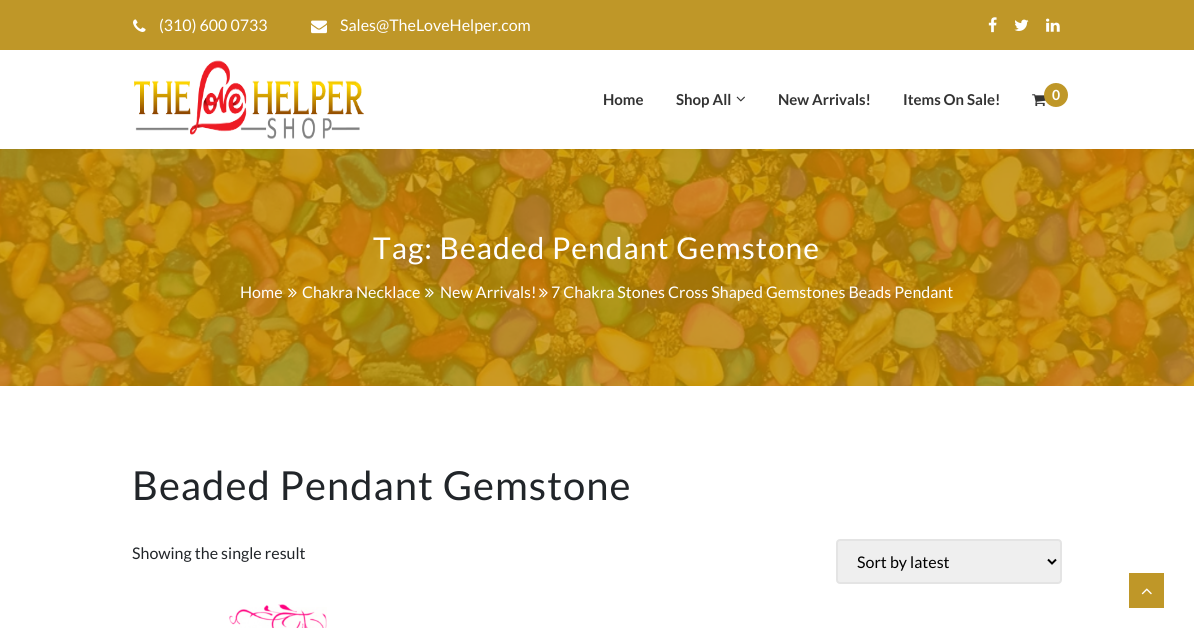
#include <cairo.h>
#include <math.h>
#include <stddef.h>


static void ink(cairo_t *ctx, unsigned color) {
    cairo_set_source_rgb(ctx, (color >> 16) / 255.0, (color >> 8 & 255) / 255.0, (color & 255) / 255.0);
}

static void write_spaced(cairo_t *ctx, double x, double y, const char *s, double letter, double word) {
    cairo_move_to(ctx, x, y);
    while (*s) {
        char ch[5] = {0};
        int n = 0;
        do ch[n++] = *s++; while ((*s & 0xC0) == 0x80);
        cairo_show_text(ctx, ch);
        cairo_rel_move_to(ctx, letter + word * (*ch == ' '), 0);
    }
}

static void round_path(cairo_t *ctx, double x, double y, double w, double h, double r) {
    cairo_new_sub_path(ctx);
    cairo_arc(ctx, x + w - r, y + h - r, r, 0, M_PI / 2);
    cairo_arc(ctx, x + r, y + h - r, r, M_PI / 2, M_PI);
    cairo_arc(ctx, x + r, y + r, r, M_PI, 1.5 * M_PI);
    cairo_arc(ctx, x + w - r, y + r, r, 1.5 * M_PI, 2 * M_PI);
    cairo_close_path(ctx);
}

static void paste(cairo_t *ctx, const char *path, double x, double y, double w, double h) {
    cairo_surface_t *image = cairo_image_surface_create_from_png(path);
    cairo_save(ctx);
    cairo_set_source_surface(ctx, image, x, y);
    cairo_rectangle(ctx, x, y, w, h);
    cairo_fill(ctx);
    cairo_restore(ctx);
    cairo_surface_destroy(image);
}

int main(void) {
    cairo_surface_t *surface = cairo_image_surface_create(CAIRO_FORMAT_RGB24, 1194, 628);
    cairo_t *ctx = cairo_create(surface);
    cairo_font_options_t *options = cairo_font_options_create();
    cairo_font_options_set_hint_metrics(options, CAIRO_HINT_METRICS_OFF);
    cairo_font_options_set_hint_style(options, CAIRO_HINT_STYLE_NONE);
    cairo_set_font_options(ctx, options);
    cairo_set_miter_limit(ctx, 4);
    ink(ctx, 0xFFFFFF);
    cairo_paint(ctx);
    ink(ctx, 0xBF9728);
    cairo_rectangle(ctx, 0, 0, 1194, 50);
    cairo_fill(ctx);
    paste(ctx, "media/1.png", 133, 19, 13, 13);
    cairo_select_font_face(ctx, "Lato", CAIRO_FONT_SLANT_NORMAL, CAIRO_FONT_WEIGHT_NORMAL);
    cairo_set_font_size(ctx, 16);
    ink(ctx, 0xFFFFFF);
    cairo_move_to(ctx, 159, 31);
    cairo_show_text(ctx, "(310) 600 0733");
    paste(ctx, "media/2.png", 311, 20, 16, 14);
    cairo_move_to(ctx, 340, 31);
    cairo_show_text(ctx, "Sales@TheLoveHelper.com");
    paste(ctx, "media/3.png", 988, 17, 9, 16);
    paste(ctx, "media/4.png", 1014, 19, 15, 12);
    paste(ctx, "media/5.png", 1046, 18, 14, 14);
    paste(ctx, "media/6.png", 134, 60, 230, 79);
    cairo_select_font_face(ctx, "Lato", CAIRO_FONT_SLANT_NORMAL, CAIRO_FONT_WEIGHT_BOLD);
    cairo_set_font_size(ctx, 15);
    ink(ctx, 0x333333);
    cairo_move_to(ctx, 603, 105);
    cairo_show_text(ctx, "Home");
    cairo_move_to(ctx, 676, 105);
    cairo_show_text(ctx, "Shop All");
    paste(ctx, "media/7.png", 736, 96, 9, 6);
    cairo_move_to(ctx, 778, 105);
    cairo_show_text(ctx, "New Arrivals!");
    cairo_move_to(ctx, 903, 105);
    cairo_show_text(ctx, "Items On Sale!");
    paste(ctx, "media/8.png", 1032, 94, 14, 13);
    ink(ctx, 0xBF9728);
    cairo_arc(ctx, 1056, 95, 12, 0, 2 * M_PI);
    cairo_fill(ctx);
    cairo_set_font_size(ctx, 14);
    ink(ctx, 0xFFFFFF);
    cairo_move_to(ctx, 1052, 100);
    cairo_show_text(ctx, "0");
    paste(ctx, "media/9.png", 0, 149, 1194, 237);
    cairo_select_font_face(ctx, "Lato", CAIRO_FONT_SLANT_NORMAL, CAIRO_FONT_WEIGHT_NORMAL);
    cairo_set_font_size(ctx, 30);
    write_spaced(ctx, 373, 259, "Tag: Beaded Pendant Gemstone", 1, 0);
    cairo_set_font_size(ctx, 16);
    cairo_move_to(ctx, 240, 298);
    cairo_show_text(ctx, "Home");
    paste(ctx, "media/10.png", 288, 288, 9, 10);
    cairo_move_to(ctx, 302, 298);
    cairo_show_text(ctx, "Chakra Necklace");
    paste(ctx, "media/11.png", 425, 288, 9, 10);
    cairo_move_to(ctx, 440, 298);
    cairo_show_text(ctx, "New Arrivals!");
    paste(ctx, "media/12.png", 539, 288, 9, 10);
    cairo_move_to(ctx, 551, 298);
    cairo_show_text(ctx, "7 Chakra Stones Cross Shaped Gemstones Beads Pendant");
    cairo_set_font_size(ctx, 40);
    ink(ctx, 0x212529);
    write_spaced(ctx, 132, 500, "Beaded Pendant Gemstone", 1, 0);
    cairo_set_font_size(ctx, 16);
    cairo_move_to(ctx, 132, 559);
    cairo_show_text(ctx, "Showing the single result");
    ink(ctx, 0xEFEFEF);
    round_path(ctx, 837, 540, 224, 43, 3);
    cairo_fill_preserve(ctx);
    ink(ctx, 0xE4E4E4);
    cairo_stroke(ctx);
    cairo_new_path(ctx);
    cairo_move_to(ctx, 1048, 559.5);
    cairo_line_to(ctx, 1052, 563.5);
    cairo_line_to(ctx, 1056, 559.5);
    ink(ctx, 0x000000);
    cairo_stroke(ctx);
    cairo_move_to(ctx, 857, 568);
    cairo_show_text(ctx, "Sort by latest");
    paste(ctx, "media/13.png", 229, 604, 98, 24);
    ink(ctx, 0xBF9728);
    cairo_rectangle(ctx, 1129, 573, 35, 35);
    cairo_fill(ctx);
    paste(ctx, "media/14.png", 1141, 588, 11, 7);
    cairo_surface_write_to_png(surface, "image.png");
    cairo_font_options_destroy(options);
    cairo_destroy(ctx);
    cairo_surface_destroy(surface);
    return 0;
}
